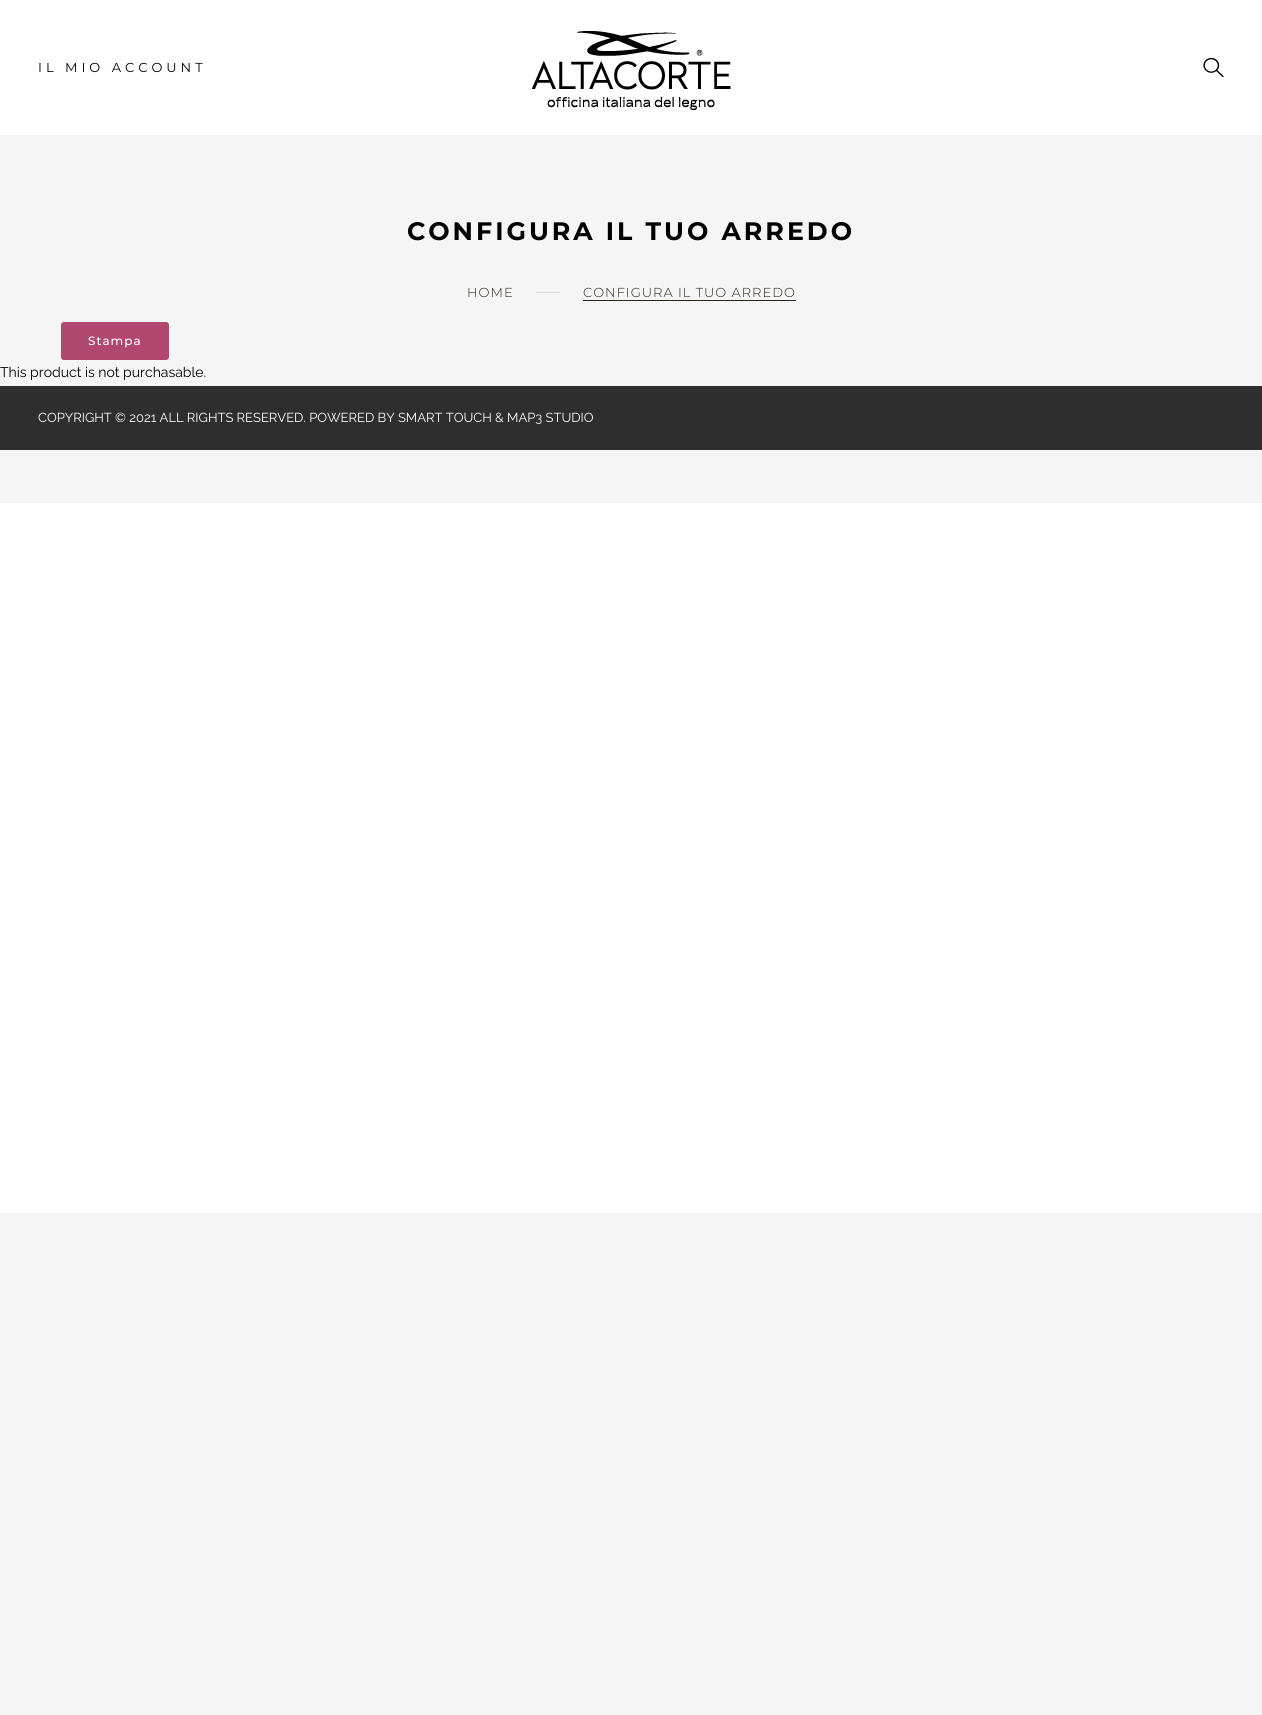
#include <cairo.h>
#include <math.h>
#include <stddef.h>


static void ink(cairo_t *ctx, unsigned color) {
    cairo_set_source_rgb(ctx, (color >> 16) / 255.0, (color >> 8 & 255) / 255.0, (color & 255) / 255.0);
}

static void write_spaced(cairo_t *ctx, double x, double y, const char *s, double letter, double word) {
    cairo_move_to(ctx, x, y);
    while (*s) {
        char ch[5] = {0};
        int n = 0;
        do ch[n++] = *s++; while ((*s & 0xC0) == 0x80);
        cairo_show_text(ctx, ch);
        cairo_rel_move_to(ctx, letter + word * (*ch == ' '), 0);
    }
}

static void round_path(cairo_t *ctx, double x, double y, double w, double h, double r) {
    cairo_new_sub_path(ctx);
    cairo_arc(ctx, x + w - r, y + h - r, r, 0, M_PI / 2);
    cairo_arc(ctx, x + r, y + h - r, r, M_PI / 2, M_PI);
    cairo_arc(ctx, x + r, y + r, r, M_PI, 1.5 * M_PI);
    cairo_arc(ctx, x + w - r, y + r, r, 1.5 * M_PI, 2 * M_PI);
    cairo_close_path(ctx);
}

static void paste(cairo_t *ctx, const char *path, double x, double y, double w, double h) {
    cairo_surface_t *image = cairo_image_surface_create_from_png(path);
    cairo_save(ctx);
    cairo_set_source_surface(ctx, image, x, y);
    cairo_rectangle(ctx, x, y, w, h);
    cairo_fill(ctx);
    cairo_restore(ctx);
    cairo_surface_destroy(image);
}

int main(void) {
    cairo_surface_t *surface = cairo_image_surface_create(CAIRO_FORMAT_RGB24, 1262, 1715);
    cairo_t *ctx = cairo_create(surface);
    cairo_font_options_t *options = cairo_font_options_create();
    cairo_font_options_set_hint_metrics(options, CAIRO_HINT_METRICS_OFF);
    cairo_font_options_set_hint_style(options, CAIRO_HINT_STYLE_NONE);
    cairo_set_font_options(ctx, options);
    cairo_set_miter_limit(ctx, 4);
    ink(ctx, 0xF5F5F5);
    cairo_paint(ctx);
    ink(ctx, 0xFFFFFF);
    cairo_rectangle(ctx, 0, 503, 1262, 710);
    cairo_fill(ctx);
    cairo_rectangle(ctx, 0, 0, 1262, 135);
    cairo_fill(ctx);
    cairo_select_font_face(ctx, "Montserrat", CAIRO_FONT_SLANT_NORMAL, CAIRO_FONT_WEIGHT_NORMAL);
    cairo_set_font_size(ctx, 13);
    ink(ctx, 0x000000);
    write_spaced(ctx, 38, 72, "IL MIO ACCOUNT", 4, 0);
    paste(ctx, "media/1.png", 532, 31, 199, 79);
    paste(ctx, "media/2.png", 1203, 57, 21, 20);
    cairo_select_font_face(ctx, "Montserrat", CAIRO_FONT_SLANT_NORMAL, CAIRO_FONT_WEIGHT_BOLD);
    cairo_set_font_size(ctx, 25.25);
    write_spaced(ctx, 407, 240, "CONFIGURA IL TUO ARREDO", 3, 0);
    cairo_select_font_face(ctx, "Montserrat Light", CAIRO_FONT_SLANT_NORMAL, CAIRO_FONT_WEIGHT_NORMAL);
    cairo_set_font_size(ctx, 13);
    ink(ctx, 0x282219);
    write_spaced(ctx, 467, 297, "HOME", 1, 0);
    ink(ctx, 0xDCDCDC);
    cairo_rectangle(ctx, 536, 292, 24, 1);
    cairo_fill(ctx);
    ink(ctx, 0x282219);
    write_spaced(ctx, 583, 297, "CONFIGURA IL TUO ARREDO", 1, 0);
    cairo_rectangle(ctx, 583, 300, 213, 1);
    cairo_fill(ctx);
    ink(ctx, 0xAF476F);
    round_path(ctx, 61, 322, 108, 38, 3);
    cairo_fill(ctx);
    cairo_select_font_face(ctx, "Montserrat Medium", CAIRO_FONT_SLANT_NORMAL, CAIRO_FONT_WEIGHT_NORMAL);
    cairo_set_font_size(ctx, 12);
    ink(ctx, 0xFFFFFF);
    write_spaced(ctx, 88, 345, "Stampa", 1, 0);
    cairo_select_font_face(ctx, "Raleway", CAIRO_FONT_SLANT_NORMAL, CAIRO_FONT_WEIGHT_NORMAL);
    cairo_set_font_size(ctx, 14);
    ink(ctx, 0x000000);
    cairo_move_to(ctx, 0, 377);
    cairo_show_text(ctx, "This product is not purchasable.");
    ink(ctx, 0x2E2E2E);
    cairo_rectangle(ctx, 0, 386, 1262, 64);
    cairo_fill(ctx);
    cairo_set_font_size(ctx, 13);
    ink(ctx, 0xFFFFFF);
    cairo_move_to(ctx, 38, 422);
    cairo_show_text(ctx, "COPYRIGHT © 2021 ALL RIGHTS RESERVED. POWERED BY SMART TOUCH & MAP3 STUDIO");
    cairo_surface_write_to_png(surface, "image.png");
    cairo_font_options_destroy(options);
    cairo_destroy(ctx);
    cairo_surface_destroy(surface);
    return 0;
}
